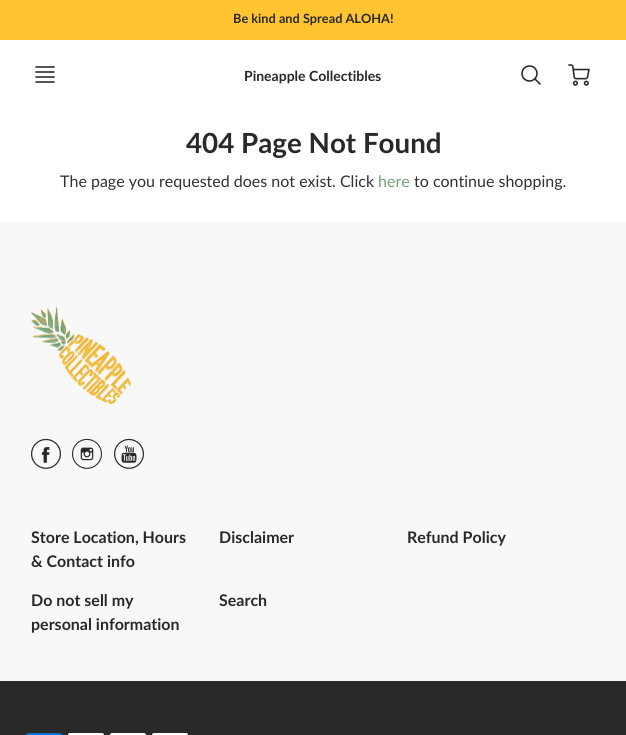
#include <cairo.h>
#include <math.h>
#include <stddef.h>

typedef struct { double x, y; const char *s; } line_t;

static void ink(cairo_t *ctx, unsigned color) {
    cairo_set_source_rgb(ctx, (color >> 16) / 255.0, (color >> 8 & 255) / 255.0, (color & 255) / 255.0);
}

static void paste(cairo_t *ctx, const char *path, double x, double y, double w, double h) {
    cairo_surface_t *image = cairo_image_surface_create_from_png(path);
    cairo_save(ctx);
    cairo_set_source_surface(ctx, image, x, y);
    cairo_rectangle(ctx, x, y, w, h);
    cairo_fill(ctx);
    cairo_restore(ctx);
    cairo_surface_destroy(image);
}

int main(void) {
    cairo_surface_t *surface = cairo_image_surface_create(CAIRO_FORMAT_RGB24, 626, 735);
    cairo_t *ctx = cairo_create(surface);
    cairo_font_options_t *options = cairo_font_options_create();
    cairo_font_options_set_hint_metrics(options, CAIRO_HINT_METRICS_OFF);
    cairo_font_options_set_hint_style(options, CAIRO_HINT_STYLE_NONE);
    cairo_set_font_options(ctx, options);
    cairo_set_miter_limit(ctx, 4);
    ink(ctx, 0xF8F8F8);
    cairo_paint(ctx);
    ink(ctx, 0xFFC42F);
    cairo_rectangle(ctx, 0, 0, 626, 40);
    cairo_fill(ctx);
    cairo_select_font_face(ctx, "Lato", CAIRO_FONT_SLANT_NORMAL, CAIRO_FONT_WEIGHT_BOLD);
    cairo_set_font_size(ctx, 12.75);
    ink(ctx, 0x292929);
    cairo_move_to(ctx, 233, 23);
    cairo_show_text(ctx, "Be kind and Spread ALOHA!");
    ink(ctx, 0xFFFFFF);
    cairo_rectangle(ctx, 0, 40, 626, 182);
    cairo_fill(ctx);
    paste(ctx, "media/1.png", 35, 66, 20, 17);
    cairo_set_font_size(ctx, 14);
    ink(ctx, 0x292929);
    cairo_move_to(ctx, 244, 81);
    cairo_show_text(ctx, "Pineapple Collectibles");
    cairo_new_path(ctx);
    cairo_arc(ctx, 529.5, 73.5, 7.5, 0, 2 * M_PI);
    cairo_set_line_width(ctx, 1.6);
    cairo_stroke(ctx);
    cairo_new_path(ctx);
    cairo_move_to(ctx, 540, 84);
    cairo_line_to(ctx, 535, 79);
    cairo_set_line_cap(ctx, CAIRO_LINE_CAP_ROUND);
    cairo_set_line_join(ctx, CAIRO_LINE_JOIN_ROUND);
    cairo_stroke(ctx);
    paste(ctx, "media/2.png", 568, 64, 22, 22);
    cairo_set_font_size(ctx, 27.75);
    cairo_move_to(ctx, 186, 153);
    cairo_show_text(ctx, "404 Page Not Found");
    cairo_select_font_face(ctx, "Lato", CAIRO_FONT_SLANT_NORMAL, CAIRO_FONT_WEIGHT_NORMAL);
    cairo_set_font_size(ctx, 16);
    ink(ctx, 0x313131);
    cairo_move_to(ctx, 60, 187);
    cairo_show_text(ctx, "The page you requested does not exist. Click");
    ink(ctx, 0x6FA479);
    cairo_move_to(ctx, 378, 187);
    cairo_show_text(ctx, "here");
    ink(ctx, 0x313131);
    cairo_move_to(ctx, 414, 187);
    cairo_show_text(ctx, "to continue shopping.");
    paste(ctx, "media/3.png", 31, 307, 100, 97);
    paste(ctx, "media/4.png", 31, 438, 30, 31);
    paste(ctx, "media/5.png", 72, 438, 30, 31);
    paste(ctx, "media/6.png", 114, 438, 30, 31);
    cairo_select_font_face(ctx, "Lato", CAIRO_FONT_SLANT_NORMAL, CAIRO_FONT_WEIGHT_BOLD);
    ink(ctx, 0x292929);
    {
        static const line_t items[] = {
            {31, 543, "Store Location, Hours"},
            {31, 567, "& Contact info"},
            {219, 543, "Disclaimer"},
            {407, 543, "Refund Policy"},
            {31, 606, "Do not sell my"},
            {31, 630, "personal information"},
            {219, 606, "Search"},
        };
        for (size_t i = 0; i < sizeof items / sizeof *items; i++) {
            cairo_move_to(ctx, items[i].x, items[i].y);
            cairo_show_text(ctx, items[i].s);
        }
    }
    cairo_rectangle(ctx, 0, 681, 626, 54);
    cairo_fill(ctx);
    paste(ctx, "media/7.png", 26, 733, 36, 2);
    paste(ctx, "media/8.png", 68, 733, 36, 2);
    paste(ctx, "media/8.png", 110, 733, 36, 2);
    paste(ctx, "media/8.png", 152, 733, 36, 2);
    cairo_surface_write_to_png(surface, "image.png");
    cairo_font_options_destroy(options);
    cairo_destroy(ctx);
    cairo_surface_destroy(surface);
    return 0;
}
